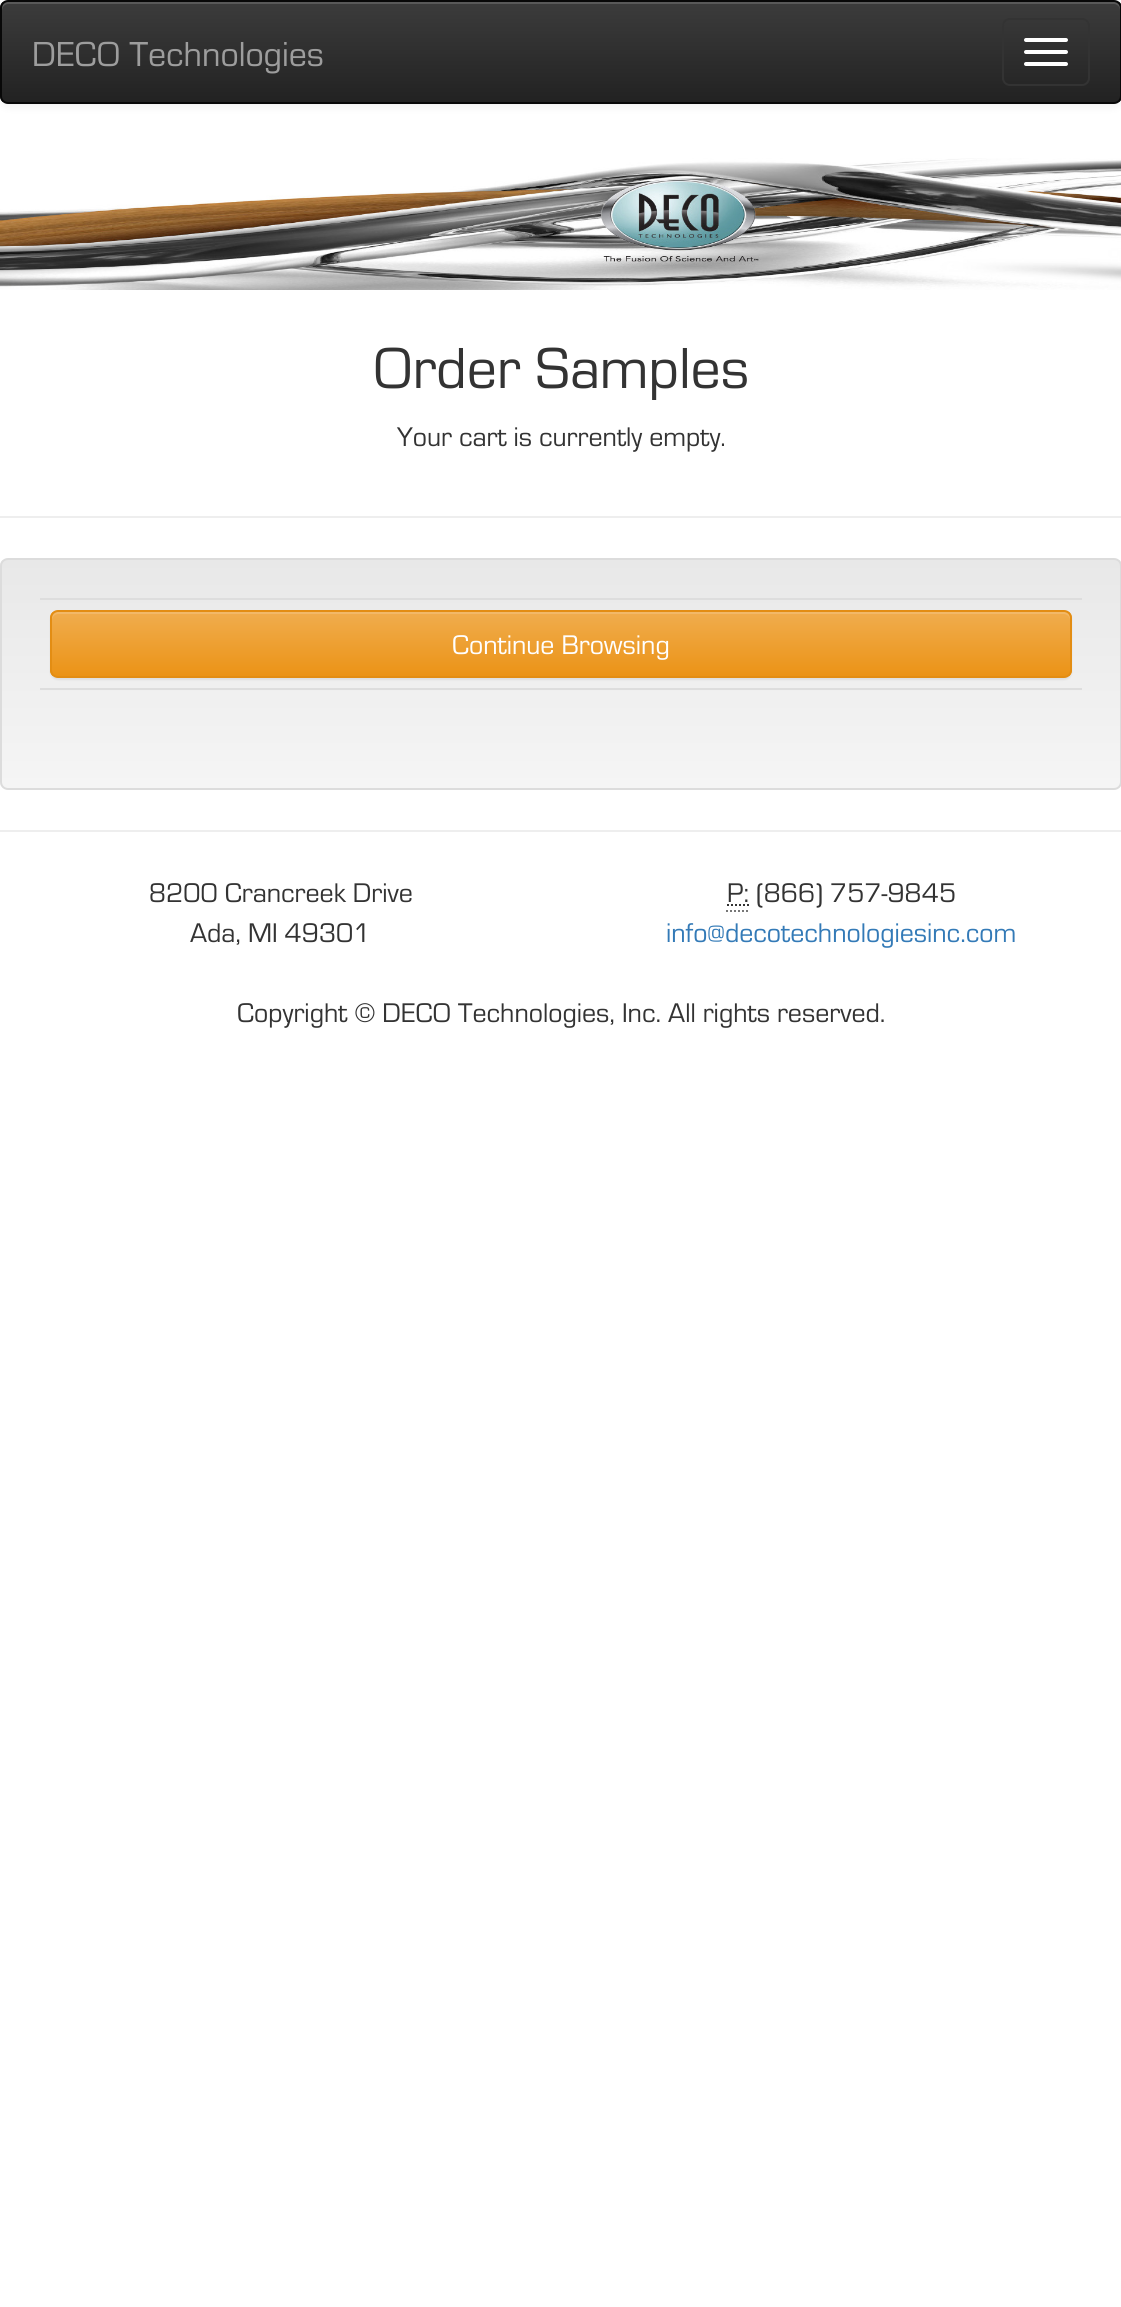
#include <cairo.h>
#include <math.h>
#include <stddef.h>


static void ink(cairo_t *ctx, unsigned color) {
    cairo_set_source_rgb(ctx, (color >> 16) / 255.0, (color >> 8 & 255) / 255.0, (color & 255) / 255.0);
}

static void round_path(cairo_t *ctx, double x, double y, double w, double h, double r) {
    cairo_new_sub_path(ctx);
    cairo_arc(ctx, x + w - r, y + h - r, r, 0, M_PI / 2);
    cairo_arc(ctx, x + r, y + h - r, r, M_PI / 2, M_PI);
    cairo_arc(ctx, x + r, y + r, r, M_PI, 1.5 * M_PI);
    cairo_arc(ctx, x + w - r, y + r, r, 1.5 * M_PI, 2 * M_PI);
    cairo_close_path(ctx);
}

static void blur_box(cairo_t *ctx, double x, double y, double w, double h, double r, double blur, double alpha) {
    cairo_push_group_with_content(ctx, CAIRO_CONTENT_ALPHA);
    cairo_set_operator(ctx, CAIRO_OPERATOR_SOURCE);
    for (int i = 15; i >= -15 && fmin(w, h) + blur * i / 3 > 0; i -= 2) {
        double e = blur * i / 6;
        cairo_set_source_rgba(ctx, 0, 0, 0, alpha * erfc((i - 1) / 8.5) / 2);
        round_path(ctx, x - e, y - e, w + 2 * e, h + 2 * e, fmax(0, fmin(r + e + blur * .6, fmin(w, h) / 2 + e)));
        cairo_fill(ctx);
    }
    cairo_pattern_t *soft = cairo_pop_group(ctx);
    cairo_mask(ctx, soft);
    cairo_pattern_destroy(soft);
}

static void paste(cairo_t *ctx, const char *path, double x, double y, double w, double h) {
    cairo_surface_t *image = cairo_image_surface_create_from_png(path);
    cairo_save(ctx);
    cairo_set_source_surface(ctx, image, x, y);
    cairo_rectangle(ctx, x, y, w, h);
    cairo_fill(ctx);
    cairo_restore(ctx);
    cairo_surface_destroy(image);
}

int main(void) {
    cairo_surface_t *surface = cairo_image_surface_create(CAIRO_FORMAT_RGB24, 1121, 2307);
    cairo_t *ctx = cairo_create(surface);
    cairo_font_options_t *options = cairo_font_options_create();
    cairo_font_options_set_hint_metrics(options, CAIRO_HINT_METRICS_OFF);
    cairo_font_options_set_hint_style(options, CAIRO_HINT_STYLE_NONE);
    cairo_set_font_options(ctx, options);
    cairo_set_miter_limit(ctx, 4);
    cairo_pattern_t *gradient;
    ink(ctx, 0xFFFFFF);
    cairo_paint(ctx);
    ink(ctx, 0x000000);
    blur_box(ctx, 0, 2, 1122, 104, 8, 5, 0.07);
    cairo_save(ctx);
    round_path(ctx, 0, 0, 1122, 104, 8);
    cairo_clip(ctx);
    gradient = cairo_pattern_create_linear(561, 2, 561, 102);
    cairo_pattern_add_color_stop_rgba(gradient, 0, 0.235, 0.235, 0.235, 1);
    cairo_pattern_add_color_stop_rgba(gradient, 1, 0.133, 0.133, 0.133, 1);
    cairo_set_source(ctx, gradient);
    cairo_pattern_destroy(gradient);
    cairo_rectangle(ctx, 0, 2, 1121, 100);
    cairo_fill(ctx);
    cairo_restore(ctx);
    ink(ctx, 0x595959);
    cairo_new_path(ctx);
    cairo_move_to(ctx, 8, 4);
    cairo_line_to(ctx, 1114, 4);
    cairo_curve_to(ctx, 1117, 4, 1120, 7, 1120, 10);
    cairo_line_to(ctx, 1120, 8);
    cairo_curve_to(ctx, 1120, 5, 1117, 2, 1114, 2);
    cairo_line_to(ctx, 8, 2);
    cairo_curve_to(ctx, 5, 2, 2, 5, 2, 8);
    cairo_line_to(ctx, 2, 10);
    cairo_curve_to(ctx, 2, 7, 5, 4, 8, 4);
    cairo_close_path(ctx);
    cairo_fill(ctx);
    round_path(ctx, 1, 1, 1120, 102, 7);
    ink(ctx, 0x080808);
    cairo_stroke(ctx);
    cairo_select_font_face(ctx, "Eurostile", CAIRO_FONT_SLANT_NORMAL, CAIRO_FONT_WEIGHT_NORMAL);
    cairo_set_font_size(ctx, 36);
    ink(ctx, 0x9D9D9D);
    cairo_move_to(ctx, 32, 66);
    cairo_show_text(ctx, "DECO Technologies");
    round_path(ctx, 1003, 19, 86, 66, 7);
    ink(ctx, 0x333333);
    cairo_stroke(ctx);
    ink(ctx, 0xFFFFFF);
    round_path(ctx, 1024, 38, 44, 4, 2);
    cairo_fill(ctx);
    round_path(ctx, 1024, 50, 44, 4, 2);
    cairo_fill(ctx);
    round_path(ctx, 1024, 62, 44, 4, 2);
    cairo_fill(ctx);
    paste(ctx, "media/1.png", 0, 158, 1121, 132);
    cairo_set_font_size(ctx, 60);
    ink(ctx, 0x333333);
    cairo_move_to(ctx, 373, 388);
    cairo_show_text(ctx, "Order Samples");
    cairo_set_font_size(ctx, 28);
    cairo_move_to(ctx, 397, 446);
    cairo_show_text(ctx, "Your cart is currently empty.");
    ink(ctx, 0xEEEEEE);
    cairo_rectangle(ctx, 0, 516, 1121, 2);
    cairo_fill(ctx);
    cairo_save(ctx);
    round_path(ctx, 0, 558, 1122, 232, 8);
    cairo_clip(ctx);
    gradient = cairo_pattern_create_linear(561, 560, 561, 788);
    cairo_pattern_add_color_stop_rgba(gradient, 0, 0.91, 0.91, 0.91, 1);
    cairo_pattern_add_color_stop_rgba(gradient, 1, 0.961, 0.961, 0.961, 1);
    cairo_set_source(ctx, gradient);
    cairo_pattern_destroy(gradient);
    cairo_rectangle(ctx, 0, 560, 1121, 228);
    cairo_fill(ctx);
    cairo_restore(ctx);
    round_path(ctx, 1, 559, 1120, 230, 7);
    ink(ctx, 0xDCDCDC);
    cairo_stroke(ctx);
    ink(ctx, 0xDDDDDD);
    cairo_rectangle(ctx, 40, 598, 1042, 2);
    cairo_fill(ctx);
    ink(ctx, 0x000000);
    blur_box(ctx, 50, 612, 1022, 68, 8, 1, 0.07);
    cairo_save(ctx);
    round_path(ctx, 50, 610, 1022, 68, 8);
    cairo_clip(ctx);
    gradient = cairo_pattern_create_linear(561, 612, 561, 676);
    cairo_pattern_add_color_stop_rgba(gradient, 0, 0.941, 0.678, 0.306, 1);
    cairo_pattern_add_color_stop_rgba(gradient, 1, 0.922, 0.576, 0.086, 1);
    cairo_set_source(ctx, gradient);
    cairo_pattern_destroy(gradient);
    cairo_rectangle(ctx, 50, 612, 1022, 64);
    cairo_fill(ctx);
    cairo_restore(ctx);
    cairo_set_source_rgba(ctx, 1, 1, 1, 0.15);
    cairo_new_path(ctx);
    cairo_move_to(ctx, 58, 614);
    cairo_line_to(ctx, 1064, 614);
    cairo_curve_to(ctx, 1067, 614, 1070, 617, 1070, 620);
    cairo_line_to(ctx, 1070, 618);
    cairo_curve_to(ctx, 1070, 615, 1067, 612, 1064, 612);
    cairo_line_to(ctx, 58, 612);
    cairo_curve_to(ctx, 55, 612, 52, 615, 52, 618);
    cairo_line_to(ctx, 52, 620);
    cairo_curve_to(ctx, 52, 617, 55, 614, 58, 614);
    cairo_close_path(ctx);
    cairo_fill(ctx);
    round_path(ctx, 51, 611, 1020, 66, 7);
    ink(ctx, 0xE38D13);
    cairo_stroke(ctx);
    ink(ctx, 0xFFFFFF);
    cairo_move_to(ctx, 452, 654);
    cairo_show_text(ctx, "Continue Browsing");
    ink(ctx, 0xDDDDDD);
    cairo_rectangle(ctx, 40, 688, 1042, 2);
    cairo_fill(ctx);
    ink(ctx, 0xEEEEEE);
    cairo_rectangle(ctx, 0, 830, 1121, 2);
    cairo_fill(ctx);
    ink(ctx, 0x333333);
    cairo_move_to(ctx, 149, 902);
    cairo_show_text(ctx, "8200 Crancreek Drive");
    cairo_move_to(ctx, 190, 942);
    cairo_show_text(ctx, "Ada, MI 49301");
    cairo_new_path(ctx);
    cairo_move_to(ctx, 727, 905);
    cairo_line_to(ctx, 749, 905);
    cairo_set_dash(ctx, (double[]){2, 2}, 2, 0);
    cairo_stroke(ctx);
    cairo_move_to(ctx, 727, 902);
    cairo_show_text(ctx, "P: (866) 757-9845");
    cairo_new_path(ctx);
    cairo_move_to(ctx, 726, 911);
    cairo_line_to(ctx, 750, 911);
    ink(ctx, 0x777777);
    cairo_stroke(ctx);
    ink(ctx, 0x337AB7);
    cairo_move_to(ctx, 666, 942);
    cairo_show_text(ctx, "info@decotechnologiesinc.com");
    ink(ctx, 0x333333);
    cairo_move_to(ctx, 237, 1022);
    cairo_show_text(ctx, "Copyright © DECO Technologies, Inc. All rights reserved.");
    cairo_surface_write_to_png(surface, "image.png");
    cairo_font_options_destroy(options);
    cairo_destroy(ctx);
    cairo_surface_destroy(surface);
    return 0;
}
